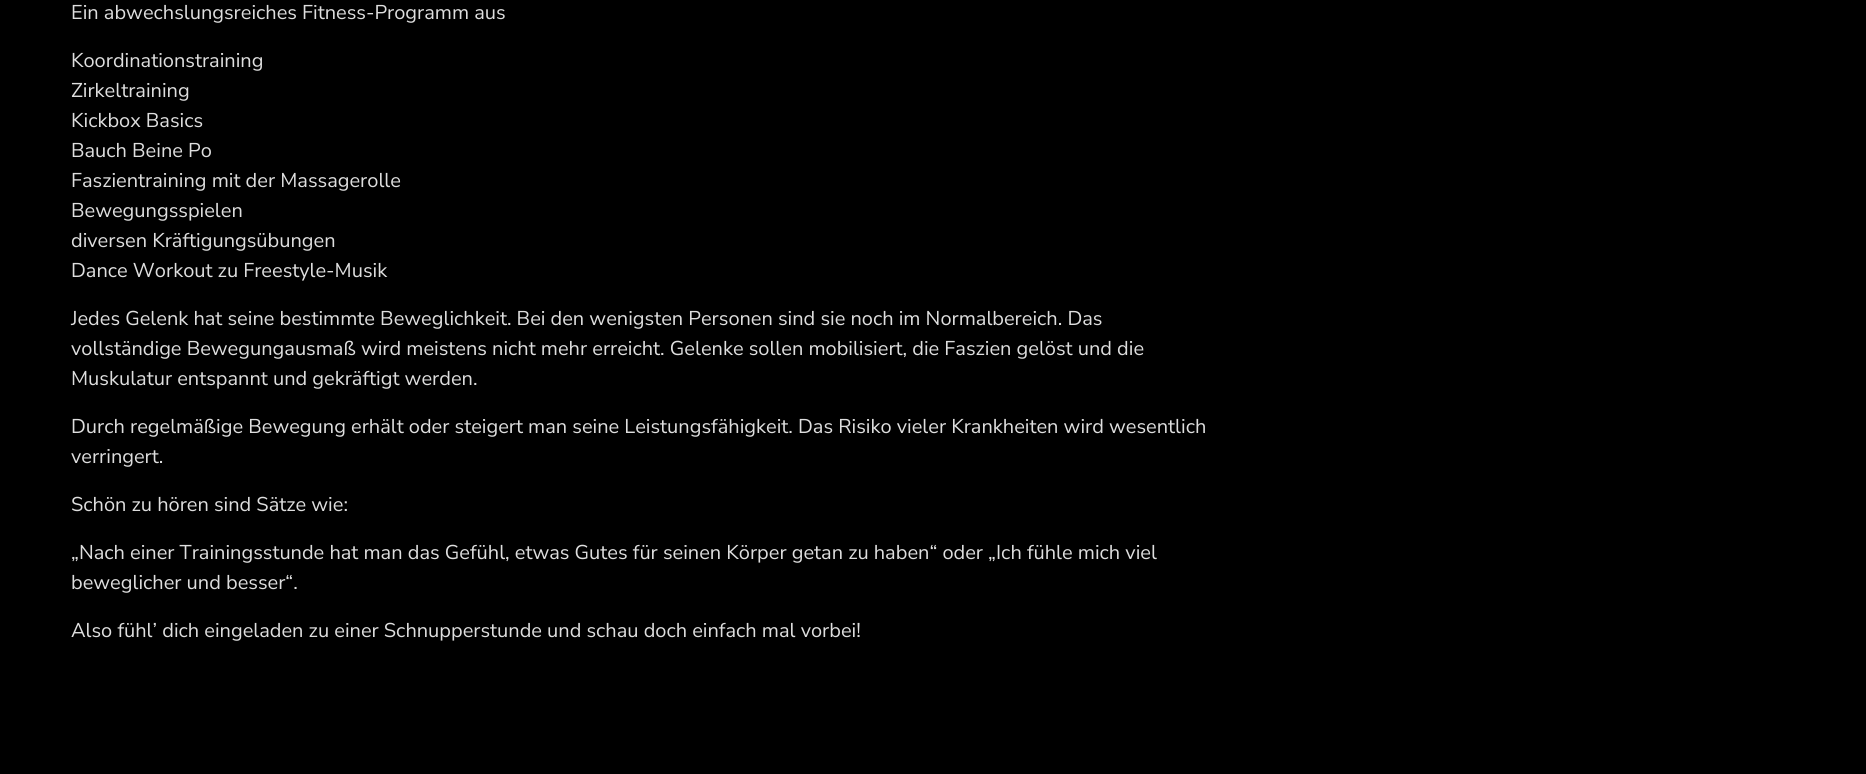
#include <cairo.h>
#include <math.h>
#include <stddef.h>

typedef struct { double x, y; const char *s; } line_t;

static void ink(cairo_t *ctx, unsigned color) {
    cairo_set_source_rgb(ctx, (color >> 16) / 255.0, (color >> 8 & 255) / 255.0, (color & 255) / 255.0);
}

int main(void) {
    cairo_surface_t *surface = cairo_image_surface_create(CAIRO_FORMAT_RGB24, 1866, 774);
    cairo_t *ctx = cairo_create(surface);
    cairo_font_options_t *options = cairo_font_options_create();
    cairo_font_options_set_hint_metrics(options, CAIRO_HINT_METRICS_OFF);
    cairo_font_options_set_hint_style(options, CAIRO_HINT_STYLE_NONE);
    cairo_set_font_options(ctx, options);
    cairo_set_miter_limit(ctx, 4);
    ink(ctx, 0x000000);
    cairo_paint(ctx);
    cairo_select_font_face(ctx, "Nunito Sans", CAIRO_FONT_SLANT_NORMAL, CAIRO_FONT_WEIGHT_NORMAL);
    cairo_set_font_size(ctx, 20);
    ink(ctx, 0xDEDEDE);
    {
        static const line_t items[] = {
            {71, 19, "Ein abwechslungsreiches Fitness-Programm aus"},
            {71, 67, "Koordinationstraining"},
            {71, 97, "Zirkeltraining"},
            {71, 127, "Kickbox Basics"},
            {71, 157, "Bauch Beine Po"},
            {71, 187, "Faszientraining mit der Massagerolle"},
            {71, 217, "Bewegungsspielen"},
            {71, 247, "diversen Kräftigungsübungen"},
            {71, 277, "Dance Workout zu Freestyle-Musik"},
            {71, 325, "Jedes Gelenk hat seine bestimmte Beweglichkeit. Bei den wenigsten Personen sind sie noch im Normalbereich. Das"},
            {71, 355, "vollständige Bewegungausmaß wird meistens nicht mehr erreicht. Gelenke sollen mobilisiert, die Faszien gelöst und die"},
            {71, 385, "Muskulatur entspannt und gekräftigt werden."},
            {71, 433, "Durch regelmäßige Bewegung erhält oder steigert man seine Leistungsfähigkeit. Das Risiko vieler Krankheiten wird wesentlich"},
            {71, 463, "verringert."},
            {71, 511, "Schön zu hören sind Sätze wie:"},
            {71, 559, "„Nach einer Trainingsstunde hat man das Gefühl, etwas Gutes für seinen Körper getan zu haben“ oder „Ich fühle mich viel"},
            {71, 589, "beweglicher und besser“."},
            {71, 637, "Also fühl’ dich eingeladen zu einer Schnupperstunde und schau doch einfach mal vorbei!"},
        };
        for (size_t i = 0; i < sizeof items / sizeof *items; i++) {
            cairo_move_to(ctx, items[i].x, items[i].y);
            cairo_show_text(ctx, items[i].s);
        }
    }
    cairo_surface_write_to_png(surface, "image.png");
    cairo_font_options_destroy(options);
    cairo_destroy(ctx);
    cairo_surface_destroy(surface);
    return 0;
}
